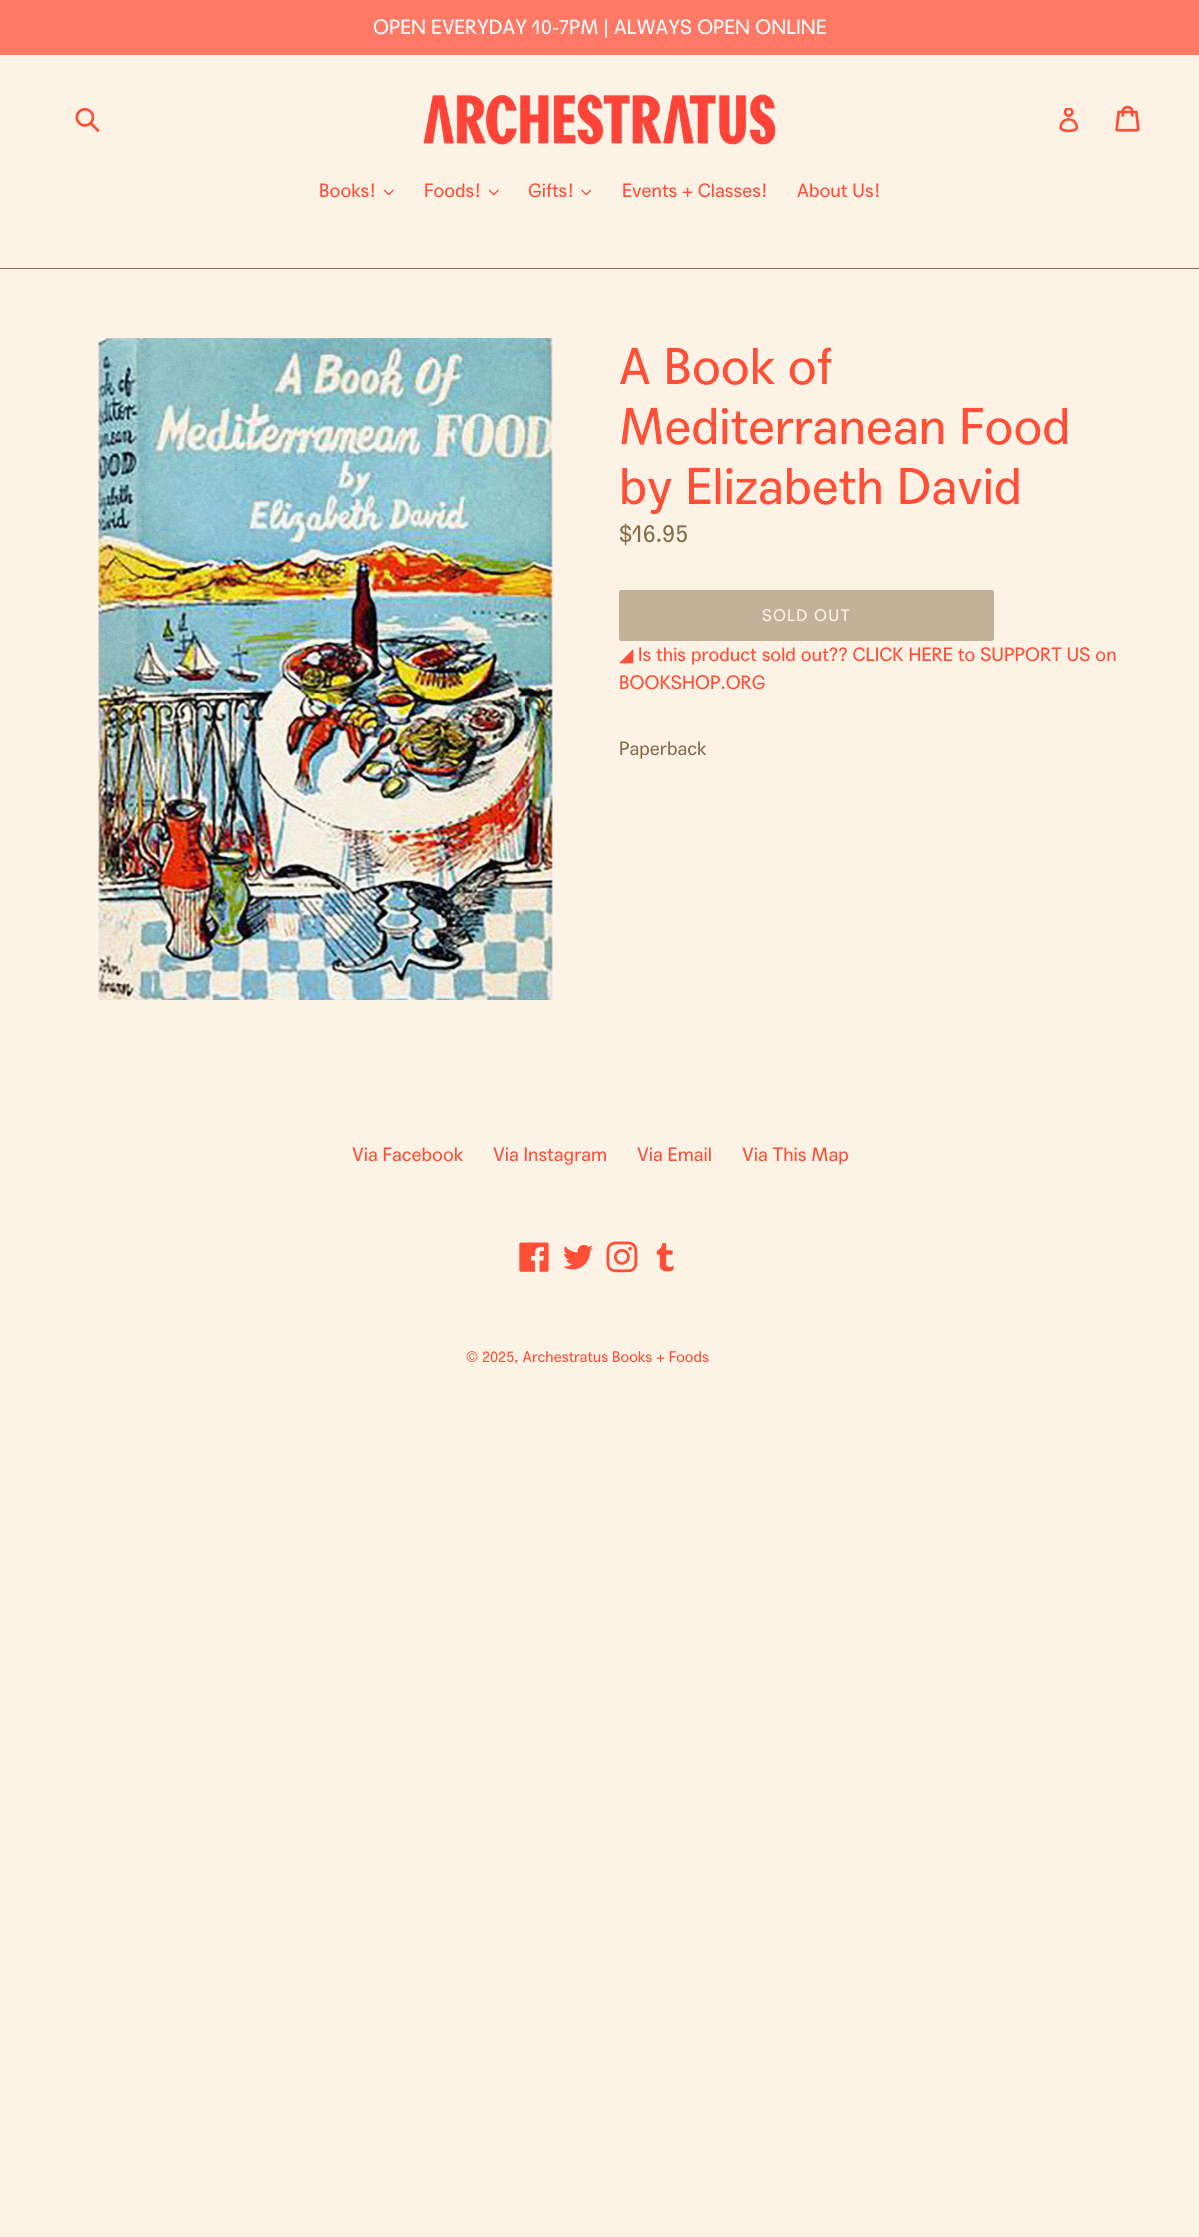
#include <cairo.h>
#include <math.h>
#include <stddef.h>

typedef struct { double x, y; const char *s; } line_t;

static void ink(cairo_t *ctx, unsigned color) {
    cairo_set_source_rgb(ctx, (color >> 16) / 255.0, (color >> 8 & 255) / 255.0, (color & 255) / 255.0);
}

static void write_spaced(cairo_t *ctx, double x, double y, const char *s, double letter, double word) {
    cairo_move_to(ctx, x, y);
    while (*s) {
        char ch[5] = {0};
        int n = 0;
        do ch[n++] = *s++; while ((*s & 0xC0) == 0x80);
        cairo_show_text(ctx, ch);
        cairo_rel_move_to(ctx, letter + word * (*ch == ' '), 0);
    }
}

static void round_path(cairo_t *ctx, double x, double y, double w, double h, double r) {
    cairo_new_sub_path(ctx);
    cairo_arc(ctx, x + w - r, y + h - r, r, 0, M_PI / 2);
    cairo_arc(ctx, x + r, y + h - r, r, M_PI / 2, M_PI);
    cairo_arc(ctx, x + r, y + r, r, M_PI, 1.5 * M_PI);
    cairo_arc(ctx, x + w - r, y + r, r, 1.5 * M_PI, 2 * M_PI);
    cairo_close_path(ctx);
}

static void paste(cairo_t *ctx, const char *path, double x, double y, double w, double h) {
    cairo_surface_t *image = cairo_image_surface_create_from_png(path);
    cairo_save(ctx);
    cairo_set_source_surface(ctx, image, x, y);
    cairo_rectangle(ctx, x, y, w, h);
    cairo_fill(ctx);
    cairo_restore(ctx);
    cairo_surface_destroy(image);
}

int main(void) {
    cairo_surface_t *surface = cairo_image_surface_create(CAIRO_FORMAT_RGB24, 1199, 2237);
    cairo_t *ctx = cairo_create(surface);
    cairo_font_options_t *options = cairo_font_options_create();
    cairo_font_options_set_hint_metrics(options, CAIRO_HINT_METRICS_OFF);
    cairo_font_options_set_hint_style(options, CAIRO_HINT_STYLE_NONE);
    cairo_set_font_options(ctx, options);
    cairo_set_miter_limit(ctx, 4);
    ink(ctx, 0xFCF3E6);
    cairo_paint(ctx);
    ink(ctx, 0xFF7966);
    cairo_rectangle(ctx, 0, 0, 1199, 55);
    cairo_fill(ctx);
    cairo_select_font_face(ctx, "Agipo", CAIRO_FONT_SLANT_NORMAL, CAIRO_FONT_WEIGHT_NORMAL);
    cairo_set_font_size(ctx, 20);
    ink(ctx, 0xFFFEFE);
    cairo_move_to(ctx, 373, 34);
    cairo_show_text(ctx, "OPEN EVERYDAY 10-7PM | ALWAYS OPEN ONLINE");
    paste(ctx, "media/1.png", 75, 108, 25, 24);
    paste(ctx, "media/2.png", 423, 94, 353, 51);
    paste(ctx, "media/3.png", 1059, 108, 20, 25);
    paste(ctx, "media/4.png", 1115, 105, 25, 27);
    ink(ctx, 0x886D4B);
    cairo_rectangle(ctx, 0, 268, 1199, 1);
    cairo_fill(ctx);
    cairo_set_font_size(ctx, 18.75);
    ink(ctx, 0xFF4F37);
    cairo_move_to(ctx, 319, 197);
    cairo_show_text(ctx, "Books!");
    paste(ctx, "media/5.png", 384, 189, 10, 7);
    cairo_move_to(ctx, 424, 197);
    cairo_show_text(ctx, "Foods!");
    paste(ctx, "media/5.png", 489, 189, 10, 7);
    cairo_move_to(ctx, 528, 197);
    cairo_show_text(ctx, "Gifts!");
    paste(ctx, "media/6.png", 581, 189, 10, 7);
    cairo_move_to(ctx, 622, 197);
    cairo_show_text(ctx, "Events + Classes!");
    cairo_move_to(ctx, 797, 197);
    cairo_show_text(ctx, "About Us!");
    paste(ctx, "media/7.png", 98, 338, 455, 662);
    cairo_set_font_size(ctx, 50);
    {
        static const line_t items[] = {
            {619, 384, "A Book of"},
            {619, 444, "Mediterranean Food"},
            {619, 504, "by Elizabeth David"},
        };
        for (size_t i = 0; i < sizeof items / sizeof *items; i++) {
            cairo_move_to(ctx, items[i].x, items[i].y);
            cairo_show_text(ctx, items[i].s);
        }
    }
    cairo_set_font_size(ctx, 24);
    ink(ctx, 0x886D4B);
    cairo_move_to(ctx, 619, 542);
    cairo_show_text(ctx, "$16.95");
    ink(ctx, 0xC2B099);
    round_path(ctx, 619, 590, 375, 51, 2.5);
    cairo_fill(ctx);
    cairo_set_font_size(ctx, 16.25);
    ink(ctx, 0xFCF3E6);
    write_spaced(ctx, 762, 621, "SOLD OUT", 1.25, 0);
    cairo_select_font_face(ctx, "DejaVu Sans", CAIRO_FONT_SLANT_NORMAL, CAIRO_FONT_WEIGHT_NORMAL);
    cairo_set_font_size(ctx, 18.75);
    ink(ctx, 0xFF4F37);
    cairo_move_to(ctx, 619, 661);
    cairo_show_text(ctx, "◢");
    cairo_select_font_face(ctx, "Agipo", CAIRO_FONT_SLANT_NORMAL, CAIRO_FONT_WEIGHT_NORMAL);
    cairo_move_to(ctx, 638, 661);
    cairo_show_text(ctx, "Is this product sold out?\077 CLICK HERE to SUPPORT US on");
    cairo_move_to(ctx, 619, 689);
    cairo_show_text(ctx, "BOOKSHOP.ORG");
    ink(ctx, 0x886D4B);
    cairo_move_to(ctx, 619, 755);
    cairo_show_text(ctx, "Paperback");
    ink(ctx, 0xFF4F37);
    {
        static const line_t items[] = {
            {352, 1161, "Via Facebook"},
            {493, 1161, "Via Instagram"},
            {637, 1161, "Via Email"},
            {742, 1161, "Via This Map"},
        };
        for (size_t i = 0; i < sizeof items / sizeof *items; i++) {
            cairo_move_to(ctx, items[i].x, items[i].y);
            cairo_show_text(ctx, items[i].s);
        }
    }
    paste(ctx, "media/8.png", 519, 1242, 30, 30);
    paste(ctx, "media/9.png", 563, 1244, 30, 26);
    paste(ctx, "media/10.png", 606, 1241, 32, 32);
    paste(ctx, "media/11.png", 656, 1243, 18, 29);
    cairo_set_font_size(ctx, 15);
    cairo_move_to(ctx, 466, 1362);
    cairo_show_text(ctx, "© 2025, Archestratus Books + Foods");
    cairo_surface_write_to_png(surface, "image.png");
    cairo_font_options_destroy(options);
    cairo_destroy(ctx);
    cairo_surface_destroy(surface);
    return 0;
}
